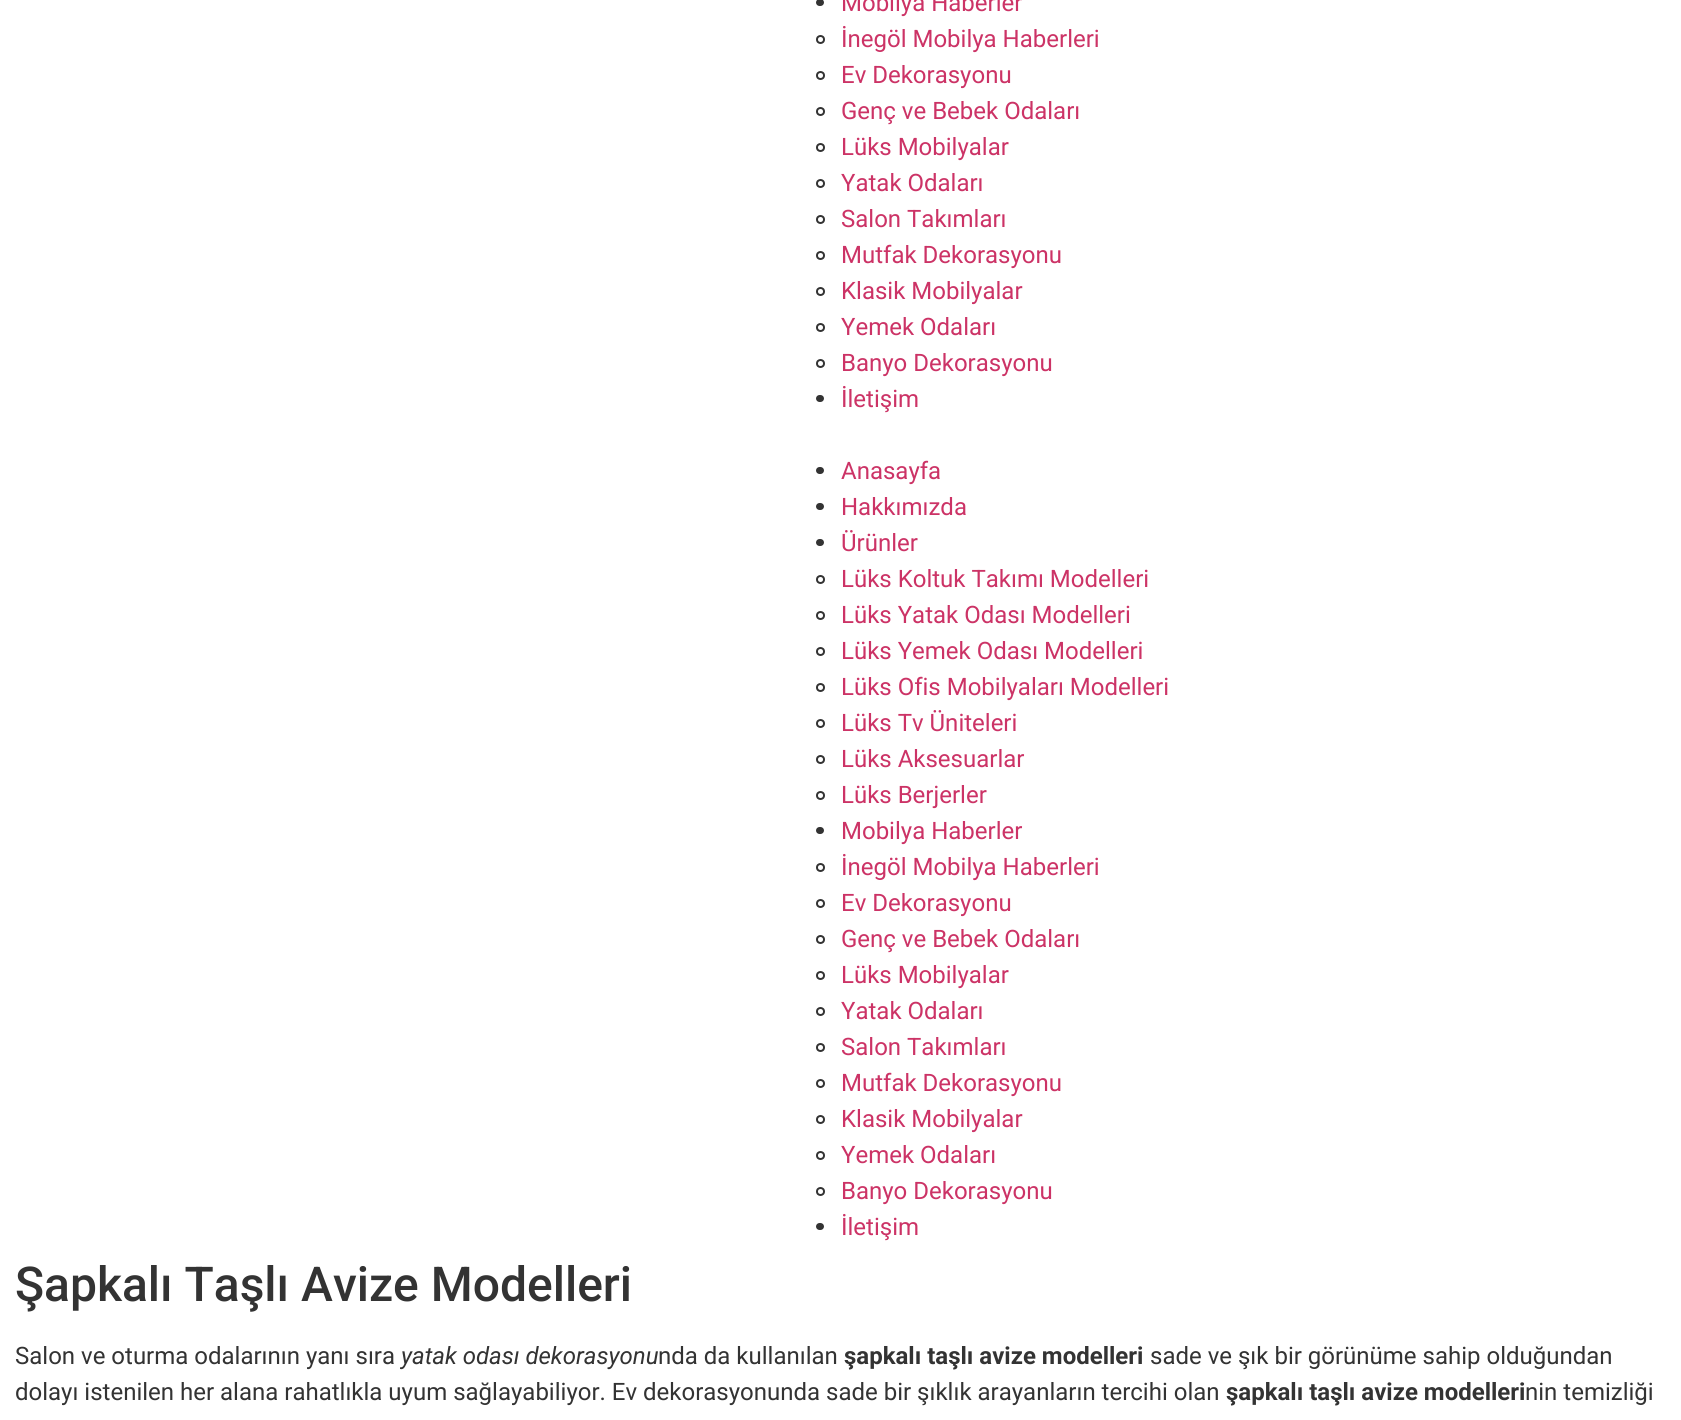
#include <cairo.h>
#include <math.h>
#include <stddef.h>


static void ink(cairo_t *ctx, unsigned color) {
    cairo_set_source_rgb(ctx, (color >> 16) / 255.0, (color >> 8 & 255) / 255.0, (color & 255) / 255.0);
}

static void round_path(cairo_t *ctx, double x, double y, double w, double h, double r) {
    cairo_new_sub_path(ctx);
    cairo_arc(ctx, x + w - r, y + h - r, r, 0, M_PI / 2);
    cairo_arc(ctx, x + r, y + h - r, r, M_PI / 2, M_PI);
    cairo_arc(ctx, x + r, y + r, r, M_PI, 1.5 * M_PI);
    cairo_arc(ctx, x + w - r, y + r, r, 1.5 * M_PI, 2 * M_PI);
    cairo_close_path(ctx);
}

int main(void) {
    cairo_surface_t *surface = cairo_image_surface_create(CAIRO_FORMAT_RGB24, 1681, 1420);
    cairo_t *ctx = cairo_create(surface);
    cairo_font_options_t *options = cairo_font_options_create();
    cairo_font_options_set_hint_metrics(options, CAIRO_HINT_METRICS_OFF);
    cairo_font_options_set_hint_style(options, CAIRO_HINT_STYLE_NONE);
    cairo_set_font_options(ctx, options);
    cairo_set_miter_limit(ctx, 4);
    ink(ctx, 0xFFFFFF);
    cairo_paint(ctx);
    ink(ctx, 0x333333);
    round_path(ctx, 816, -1, 8, 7, 3.5);
    cairo_fill(ctx);
    cairo_select_font_face(ctx, "Roboto", CAIRO_FONT_SLANT_NORMAL, CAIRO_FONT_WEIGHT_NORMAL);
    cairo_set_font_size(ctx, 24);
    ink(ctx, 0xCC3366);
    cairo_move_to(ctx, 841, 11);
    cairo_show_text(ctx, "Mobilya Haberler");
    cairo_new_path(ctx);
    cairo_arc(ctx, 820.5, 39.5, 3.5, 0, 2 * M_PI);
    ink(ctx, 0x333333);
    cairo_stroke(ctx);
    ink(ctx, 0xCC3366);
    cairo_move_to(ctx, 841, 47);
    cairo_show_text(ctx, "İnegöl Mobilya Haberleri");
    cairo_new_path(ctx);
    cairo_arc(ctx, 820.5, 75.5, 3.5, 0, 2 * M_PI);
    ink(ctx, 0x333333);
    cairo_stroke(ctx);
    ink(ctx, 0xCC3366);
    cairo_move_to(ctx, 841, 83);
    cairo_show_text(ctx, "Ev Dekorasyonu");
    cairo_new_path(ctx);
    cairo_arc(ctx, 820.5, 111.5, 3.5, 0, 2 * M_PI);
    ink(ctx, 0x333333);
    cairo_stroke(ctx);
    ink(ctx, 0xCC3366);
    cairo_move_to(ctx, 841, 119);
    cairo_show_text(ctx, "Genç ve Bebek Odaları");
    cairo_new_path(ctx);
    cairo_arc(ctx, 820.5, 147.5, 3.5, 0, 2 * M_PI);
    ink(ctx, 0x333333);
    cairo_stroke(ctx);
    ink(ctx, 0xCC3366);
    cairo_move_to(ctx, 841, 155);
    cairo_show_text(ctx, "Lüks Mobilyalar");
    cairo_new_path(ctx);
    cairo_arc(ctx, 820.5, 183.5, 3.5, 0, 2 * M_PI);
    ink(ctx, 0x333333);
    cairo_stroke(ctx);
    ink(ctx, 0xCC3366);
    cairo_move_to(ctx, 841, 191);
    cairo_show_text(ctx, "Yatak Odaları");
    cairo_new_path(ctx);
    cairo_arc(ctx, 820.5, 219.5, 3.5, 0, 2 * M_PI);
    ink(ctx, 0x333333);
    cairo_stroke(ctx);
    ink(ctx, 0xCC3366);
    cairo_move_to(ctx, 841, 227);
    cairo_show_text(ctx, "Salon Takımları");
    cairo_new_path(ctx);
    cairo_arc(ctx, 820.5, 255.5, 3.5, 0, 2 * M_PI);
    ink(ctx, 0x333333);
    cairo_stroke(ctx);
    ink(ctx, 0xCC3366);
    cairo_move_to(ctx, 841, 263);
    cairo_show_text(ctx, "Mutfak Dekorasyonu");
    cairo_new_path(ctx);
    cairo_arc(ctx, 820.5, 291.5, 3.5, 0, 2 * M_PI);
    ink(ctx, 0x333333);
    cairo_stroke(ctx);
    ink(ctx, 0xCC3366);
    cairo_move_to(ctx, 841, 299);
    cairo_show_text(ctx, "Klasik Mobilyalar");
    cairo_new_path(ctx);
    cairo_arc(ctx, 820.5, 327.5, 3.5, 0, 2 * M_PI);
    ink(ctx, 0x333333);
    cairo_stroke(ctx);
    ink(ctx, 0xCC3366);
    cairo_move_to(ctx, 841, 335);
    cairo_show_text(ctx, "Yemek Odaları");
    cairo_new_path(ctx);
    cairo_arc(ctx, 820.5, 363.5, 3.5, 0, 2 * M_PI);
    ink(ctx, 0x333333);
    cairo_stroke(ctx);
    ink(ctx, 0xCC3366);
    cairo_move_to(ctx, 841, 371);
    cairo_show_text(ctx, "Banyo Dekorasyonu");
    ink(ctx, 0x333333);
    round_path(ctx, 816, 395, 8, 7, 3.5);
    cairo_fill(ctx);
    ink(ctx, 0xCC3366);
    cairo_move_to(ctx, 841, 407);
    cairo_show_text(ctx, "İletişim");
    ink(ctx, 0x333333);
    round_path(ctx, 816, 467, 8, 7, 3.5);
    cairo_fill(ctx);
    ink(ctx, 0xCC3366);
    cairo_move_to(ctx, 841, 479);
    cairo_show_text(ctx, "Anasayfa");
    ink(ctx, 0x333333);
    round_path(ctx, 816, 503, 8, 7, 3.5);
    cairo_fill(ctx);
    ink(ctx, 0xCC3366);
    cairo_move_to(ctx, 841, 515);
    cairo_show_text(ctx, "Hakkımızda");
    ink(ctx, 0x333333);
    round_path(ctx, 816, 539, 8, 7, 3.5);
    cairo_fill(ctx);
    ink(ctx, 0xCC3366);
    cairo_move_to(ctx, 841, 551);
    cairo_show_text(ctx, "Ürünler");
    cairo_new_path(ctx);
    cairo_arc(ctx, 820.5, 579.5, 3.5, 0, 2 * M_PI);
    ink(ctx, 0x333333);
    cairo_stroke(ctx);
    ink(ctx, 0xCC3366);
    cairo_move_to(ctx, 841, 587);
    cairo_show_text(ctx, "Lüks Koltuk Takımı Modelleri");
    cairo_new_path(ctx);
    cairo_arc(ctx, 820.5, 615.5, 3.5, 0, 2 * M_PI);
    ink(ctx, 0x333333);
    cairo_stroke(ctx);
    ink(ctx, 0xCC3366);
    cairo_move_to(ctx, 841, 623);
    cairo_show_text(ctx, "Lüks Yatak Odası Modelleri");
    cairo_new_path(ctx);
    cairo_arc(ctx, 820.5, 651.5, 3.5, 0, 2 * M_PI);
    ink(ctx, 0x333333);
    cairo_stroke(ctx);
    ink(ctx, 0xCC3366);
    cairo_move_to(ctx, 841, 659);
    cairo_show_text(ctx, "Lüks Yemek Odası Modelleri");
    cairo_new_path(ctx);
    cairo_arc(ctx, 820.5, 687.5, 3.5, 0, 2 * M_PI);
    ink(ctx, 0x333333);
    cairo_stroke(ctx);
    ink(ctx, 0xCC3366);
    cairo_move_to(ctx, 841, 695);
    cairo_show_text(ctx, "Lüks Ofis Mobilyaları Modelleri");
    cairo_new_path(ctx);
    cairo_arc(ctx, 820.5, 723.5, 3.5, 0, 2 * M_PI);
    ink(ctx, 0x333333);
    cairo_stroke(ctx);
    ink(ctx, 0xCC3366);
    cairo_move_to(ctx, 841, 731);
    cairo_show_text(ctx, "Lüks Tv Üniteleri");
    cairo_new_path(ctx);
    cairo_arc(ctx, 820.5, 759.5, 3.5, 0, 2 * M_PI);
    ink(ctx, 0x333333);
    cairo_stroke(ctx);
    ink(ctx, 0xCC3366);
    cairo_move_to(ctx, 841, 767);
    cairo_show_text(ctx, "Lüks Aksesuarlar");
    cairo_new_path(ctx);
    cairo_arc(ctx, 820.5, 795.5, 3.5, 0, 2 * M_PI);
    ink(ctx, 0x333333);
    cairo_stroke(ctx);
    ink(ctx, 0xCC3366);
    cairo_move_to(ctx, 841, 803);
    cairo_show_text(ctx, "Lüks Berjerler");
    ink(ctx, 0x333333);
    round_path(ctx, 816, 827, 8, 7, 3.5);
    cairo_fill(ctx);
    ink(ctx, 0xCC3366);
    cairo_move_to(ctx, 841, 839);
    cairo_show_text(ctx, "Mobilya Haberler");
    cairo_new_path(ctx);
    cairo_arc(ctx, 820.5, 867.5, 3.5, 0, 2 * M_PI);
    ink(ctx, 0x333333);
    cairo_stroke(ctx);
    ink(ctx, 0xCC3366);
    cairo_move_to(ctx, 841, 875);
    cairo_show_text(ctx, "İnegöl Mobilya Haberleri");
    cairo_new_path(ctx);
    cairo_arc(ctx, 820.5, 903.5, 3.5, 0, 2 * M_PI);
    ink(ctx, 0x333333);
    cairo_stroke(ctx);
    ink(ctx, 0xCC3366);
    cairo_move_to(ctx, 841, 911);
    cairo_show_text(ctx, "Ev Dekorasyonu");
    cairo_new_path(ctx);
    cairo_arc(ctx, 820.5, 939.5, 3.5, 0, 2 * M_PI);
    ink(ctx, 0x333333);
    cairo_stroke(ctx);
    ink(ctx, 0xCC3366);
    cairo_move_to(ctx, 841, 947);
    cairo_show_text(ctx, "Genç ve Bebek Odaları");
    cairo_new_path(ctx);
    cairo_arc(ctx, 820.5, 975.5, 3.5, 0, 2 * M_PI);
    ink(ctx, 0x333333);
    cairo_stroke(ctx);
    ink(ctx, 0xCC3366);
    cairo_move_to(ctx, 841, 983);
    cairo_show_text(ctx, "Lüks Mobilyalar");
    cairo_new_path(ctx);
    cairo_arc(ctx, 820.5, 1011.5, 3.5, 0, 2 * M_PI);
    ink(ctx, 0x333333);
    cairo_stroke(ctx);
    ink(ctx, 0xCC3366);
    cairo_move_to(ctx, 841, 1019);
    cairo_show_text(ctx, "Yatak Odaları");
    cairo_new_path(ctx);
    cairo_arc(ctx, 820.5, 1047.5, 3.5, 0, 2 * M_PI);
    ink(ctx, 0x333333);
    cairo_stroke(ctx);
    ink(ctx, 0xCC3366);
    cairo_move_to(ctx, 841, 1055);
    cairo_show_text(ctx, "Salon Takımları");
    cairo_new_path(ctx);
    cairo_arc(ctx, 820.5, 1083.5, 3.5, 0, 2 * M_PI);
    ink(ctx, 0x333333);
    cairo_stroke(ctx);
    ink(ctx, 0xCC3366);
    cairo_move_to(ctx, 841, 1091);
    cairo_show_text(ctx, "Mutfak Dekorasyonu");
    cairo_new_path(ctx);
    cairo_arc(ctx, 820.5, 1119.5, 3.5, 0, 2 * M_PI);
    ink(ctx, 0x333333);
    cairo_stroke(ctx);
    ink(ctx, 0xCC3366);
    cairo_move_to(ctx, 841, 1127);
    cairo_show_text(ctx, "Klasik Mobilyalar");
    cairo_new_path(ctx);
    cairo_arc(ctx, 820.5, 1155.5, 3.5, 0, 2 * M_PI);
    ink(ctx, 0x333333);
    cairo_stroke(ctx);
    ink(ctx, 0xCC3366);
    cairo_move_to(ctx, 841, 1163);
    cairo_show_text(ctx, "Yemek Odaları");
    cairo_new_path(ctx);
    cairo_arc(ctx, 820.5, 1191.5, 3.5, 0, 2 * M_PI);
    ink(ctx, 0x333333);
    cairo_stroke(ctx);
    ink(ctx, 0xCC3366);
    cairo_move_to(ctx, 841, 1199);
    cairo_show_text(ctx, "Banyo Dekorasyonu");
    ink(ctx, 0x333333);
    round_path(ctx, 816, 1223, 8, 7, 3.5);
    cairo_fill(ctx);
    ink(ctx, 0xCC3366);
    cairo_move_to(ctx, 841, 1235);
    cairo_show_text(ctx, "İletişim");
    cairo_select_font_face(ctx, "Roboto Medium", CAIRO_FONT_SLANT_NORMAL, CAIRO_FONT_WEIGHT_NORMAL);
    cairo_set_font_size(ctx, 48);
    ink(ctx, 0x333333);
    cairo_move_to(ctx, 15, 1301);
    cairo_show_text(ctx, "Şapkalı Taşlı Avize Modelleri");
    cairo_select_font_face(ctx, "Roboto", CAIRO_FONT_SLANT_NORMAL, CAIRO_FONT_WEIGHT_NORMAL);
    cairo_set_font_size(ctx, 24);
    cairo_move_to(ctx, 15, 1364);
    cairo_show_text(ctx, "Salon ve oturma odalarının yanı sıra");
    cairo_select_font_face(ctx, "Roboto", CAIRO_FONT_SLANT_ITALIC, CAIRO_FONT_WEIGHT_NORMAL);
    cairo_move_to(ctx, 401, 1364);
    cairo_show_text(ctx, "yatak odası dekorasyonu");
    cairo_select_font_face(ctx, "Roboto", CAIRO_FONT_SLANT_NORMAL, CAIRO_FONT_WEIGHT_NORMAL);
    cairo_move_to(ctx, 658, 1364);
    cairo_show_text(ctx, "nda da kullanılan");
    cairo_select_font_face(ctx, "Roboto", CAIRO_FONT_SLANT_NORMAL, CAIRO_FONT_WEIGHT_BOLD);
    cairo_move_to(ctx, 844, 1364);
    cairo_show_text(ctx, "şapkalı taşlı avize modelleri");
    cairo_select_font_face(ctx, "Roboto", CAIRO_FONT_SLANT_NORMAL, CAIRO_FONT_WEIGHT_NORMAL);
    cairo_move_to(ctx, 1150, 1364);
    cairo_show_text(ctx, "sade ve şık bir görünüme sahip olduğundan");
    cairo_move_to(ctx, 15, 1400);
    cairo_show_text(ctx, "dolayı istenilen her alana rahatlıkla uyum sağlayabiliyor. Ev dekorasyonunda sade bir şıklık arayanların tercihi olan");
    cairo_select_font_face(ctx, "Roboto", CAIRO_FONT_SLANT_NORMAL, CAIRO_FONT_WEIGHT_BOLD);
    cairo_move_to(ctx, 1226, 1400);
    cairo_show_text(ctx, "şapkalı taşlı avize modelleri");
    cairo_select_font_face(ctx, "Roboto", CAIRO_FONT_SLANT_NORMAL, CAIRO_FONT_WEIGHT_NORMAL);
    cairo_move_to(ctx, 1525, 1400);
    cairo_show_text(ctx, "nin temizliği");
    cairo_surface_write_to_png(surface, "image.png");
    cairo_font_options_destroy(options);
    cairo_destroy(ctx);
    cairo_surface_destroy(surface);
    return 0;
}
